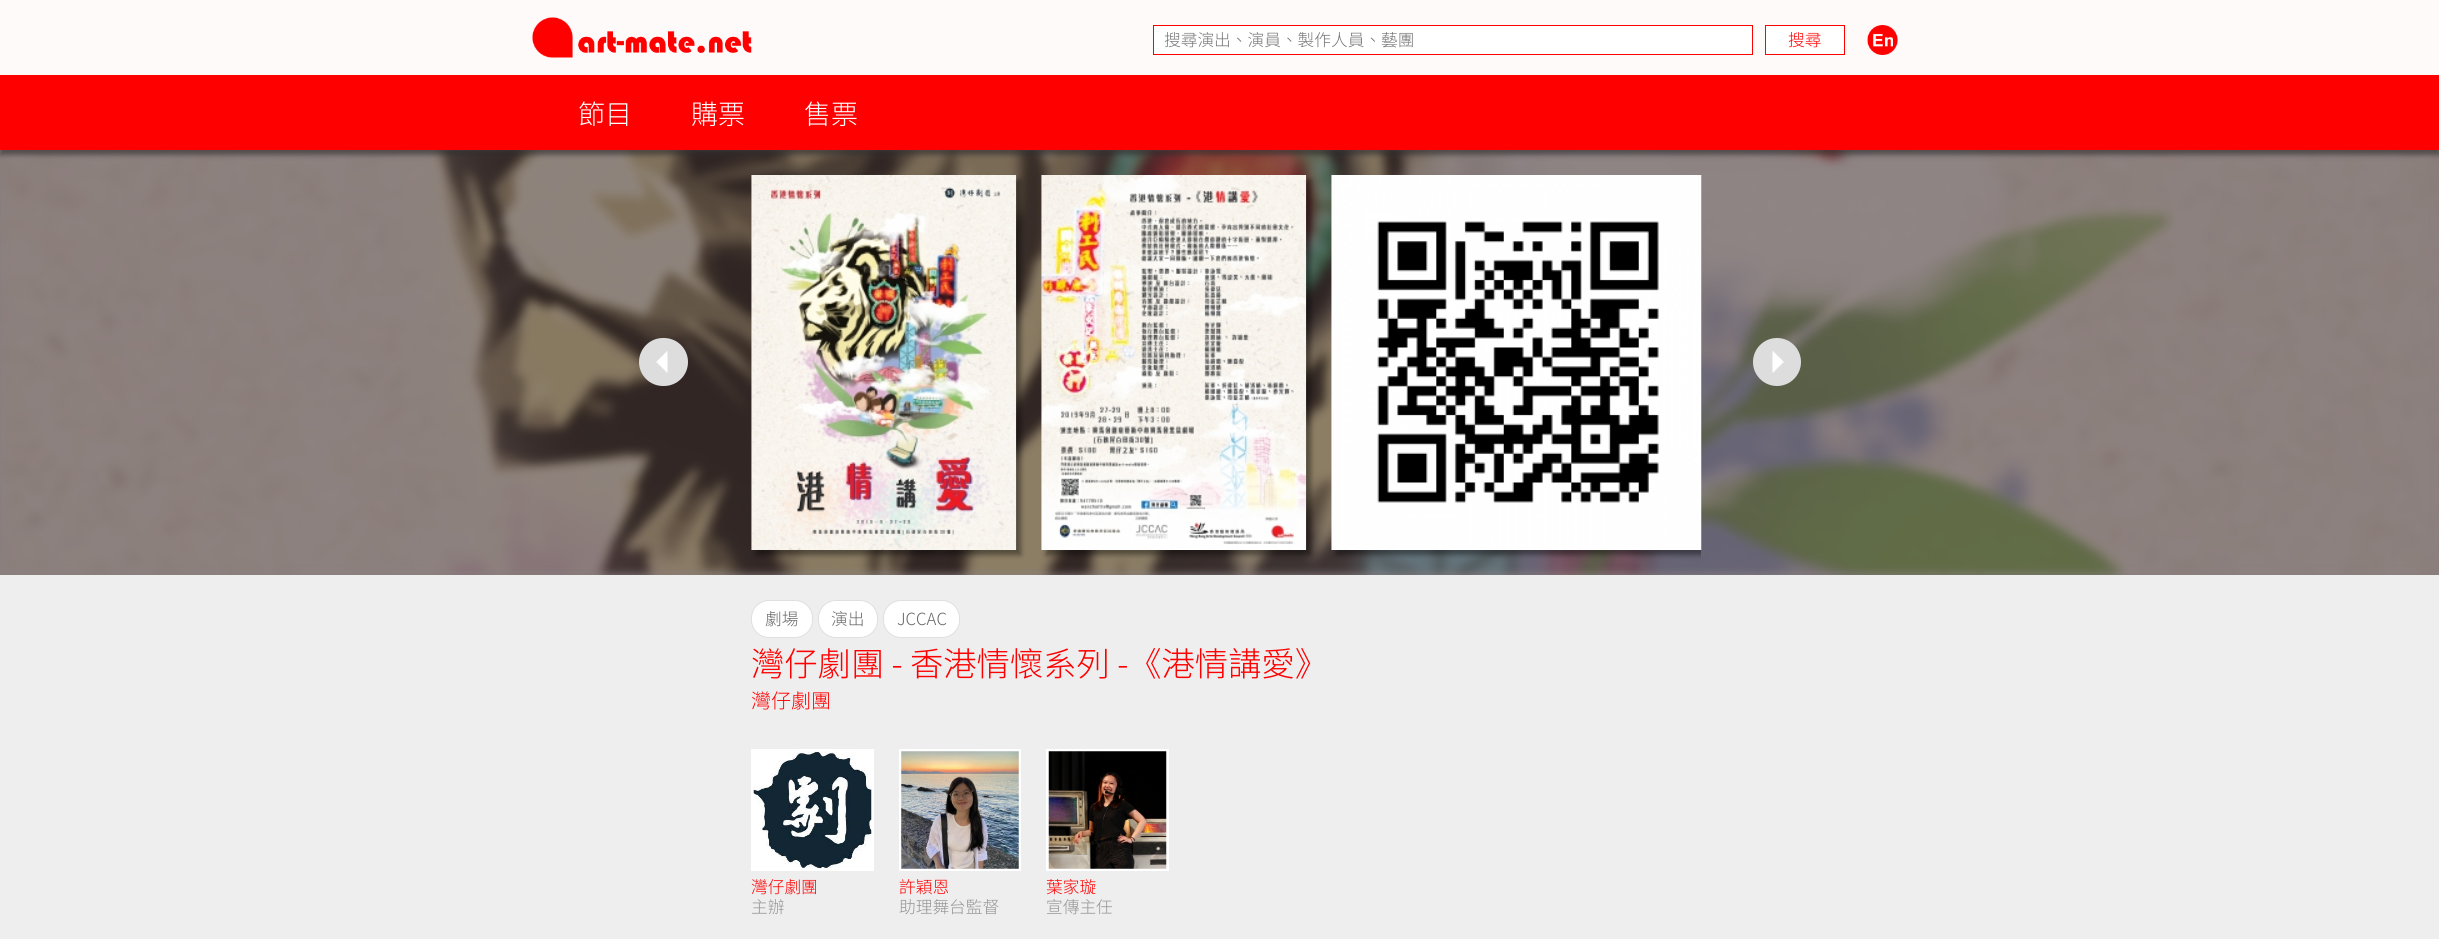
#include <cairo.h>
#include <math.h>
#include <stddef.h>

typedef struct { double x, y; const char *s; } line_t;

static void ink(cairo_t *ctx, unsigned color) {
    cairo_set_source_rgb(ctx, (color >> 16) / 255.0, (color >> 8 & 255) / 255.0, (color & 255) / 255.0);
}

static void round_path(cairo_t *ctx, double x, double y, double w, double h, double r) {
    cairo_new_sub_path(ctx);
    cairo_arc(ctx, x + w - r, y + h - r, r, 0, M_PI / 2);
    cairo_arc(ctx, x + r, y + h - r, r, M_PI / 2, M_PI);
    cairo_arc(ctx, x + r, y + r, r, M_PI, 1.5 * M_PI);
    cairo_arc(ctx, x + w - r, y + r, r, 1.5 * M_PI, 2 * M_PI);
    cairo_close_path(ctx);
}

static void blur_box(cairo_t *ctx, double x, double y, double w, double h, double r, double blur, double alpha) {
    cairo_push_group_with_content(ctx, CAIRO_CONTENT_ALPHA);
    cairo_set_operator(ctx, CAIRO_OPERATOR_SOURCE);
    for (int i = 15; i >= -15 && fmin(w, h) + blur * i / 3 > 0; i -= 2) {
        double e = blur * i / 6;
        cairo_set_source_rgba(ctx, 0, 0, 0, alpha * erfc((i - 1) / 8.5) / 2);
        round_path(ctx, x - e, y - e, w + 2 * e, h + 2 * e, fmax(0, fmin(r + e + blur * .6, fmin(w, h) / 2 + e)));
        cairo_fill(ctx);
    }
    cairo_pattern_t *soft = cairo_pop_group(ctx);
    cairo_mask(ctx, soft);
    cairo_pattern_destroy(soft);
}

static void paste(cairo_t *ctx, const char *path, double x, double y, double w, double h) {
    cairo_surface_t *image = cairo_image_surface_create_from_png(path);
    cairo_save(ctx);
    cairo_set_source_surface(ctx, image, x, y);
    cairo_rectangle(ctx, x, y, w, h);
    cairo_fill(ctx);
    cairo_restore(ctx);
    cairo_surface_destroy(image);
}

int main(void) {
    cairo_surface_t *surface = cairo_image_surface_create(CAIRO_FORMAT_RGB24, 2439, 939);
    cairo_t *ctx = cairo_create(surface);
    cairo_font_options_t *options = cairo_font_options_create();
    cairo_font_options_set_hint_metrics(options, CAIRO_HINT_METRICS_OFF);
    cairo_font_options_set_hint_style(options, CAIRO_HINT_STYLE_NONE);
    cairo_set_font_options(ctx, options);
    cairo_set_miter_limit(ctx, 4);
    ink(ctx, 0xEEEEEE);
    cairo_paint(ctx);
    ink(ctx, 0x887E7E);
    cairo_rectangle(ctx, 0, 150, 2439, 425);
    cairo_fill(ctx);
    ink(ctx, 0xFFFAFA);
    cairo_rectangle(ctx, 0, 0, 2439, 75);
    cairo_fill(ctx);
    paste(ctx, "media/1.png", 532, 17, 220, 41);
    ink(ctx, 0xFFFFFF);
    cairo_rectangle(ctx, 1153.5, 25.5, 599, 29);
    cairo_fill_preserve(ctx);
    ink(ctx, 0xFF0000);
    cairo_set_line_width(ctx, 1);
    cairo_stroke(ctx);
    cairo_select_font_face(ctx, "Noto Sans HK Thin", CAIRO_FONT_SLANT_NORMAL, CAIRO_FONT_WEIGHT_NORMAL);
    cairo_set_font_size(ctx, 16.7);
    ink(ctx, 0x757575);
    cairo_move_to(ctx, 1164, 46);
    cairo_show_text(ctx, "搜尋演出、演員、製作人員、藝團");
    ink(ctx, 0xFFFFFF);
    cairo_rectangle(ctx, 1765.5, 25.5, 79, 29);
    cairo_fill_preserve(ctx);
    ink(ctx, 0xFF0000);
    cairo_stroke(ctx);
    cairo_move_to(ctx, 1788, 46);
    cairo_show_text(ctx, "搜尋");
    paste(ctx, "media/2.png", 1867, 25, 31, 30);
    paste(ctx, "media/3.png", 0, 150, 2439, 425);
    ink(ctx, 0x000000);
    blur_box(ctx, 0, 80, 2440, 75, 0, 2.5, 0.4);
    ink(ctx, 0xFF0000);
    cairo_rectangle(ctx, 0, 75, 2439, 75);
    cairo_fill(ctx);
    cairo_set_font_size(ctx, 27);
    ink(ctx, 0xFFFFFF);
    {
        static const line_t items[] = {
            {578, 124, "節目"},
            {691, 124, "購票"},
            {804, 124, "售票"},
        };
        for (size_t i = 0; i < sizeof items / sizeof *items; i++) {
            cairo_move_to(ctx, items[i].x, items[i].y);
            cairo_show_text(ctx, items[i].s);
        }
    }
    ink(ctx, 0xDDDDDD);
    round_path(ctx, 639, 338, 49, 48, 24);
    cairo_fill(ctx);
    paste(ctx, "media/4.png", 656, 351, 12, 22);
    ink(ctx, 0x000000);
    blur_box(ctx, 756, 180, 265, 375, 0, 2.5, 0.4);
    paste(ctx, "media/5.png", 751, 175, 266, 375);
    blur_box(ctx, 1046, 180, 265, 375, 0, 2.5, 0.4);
    paste(ctx, "media/6.png", 1041, 175, 266, 375);
    cairo_save(ctx);
    cairo_rectangle(ctx, 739, 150, 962, 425);
    cairo_clip(ctx);
    blur_box(ctx, 1336, 180, 375, 375, 0, 2.5, 0.4);
    cairo_restore(ctx);
    paste(ctx, "media/7.png", 1331, 175, 371, 375);
    ink(ctx, 0xDDDDDD);
    cairo_arc(ctx, 1777, 362, 24, 0, 2 * M_PI);
    cairo_fill(ctx);
    paste(ctx, "media/8.png", 1772, 351, 12, 22);
    ink(ctx, 0xFFFFFF);
    round_path(ctx, 751.5, 600.5, 61, 37, 17.5);
    cairo_fill_preserve(ctx);
    ink(ctx, 0xDFDFDF);
    cairo_stroke(ctx);
    cairo_set_font_size(ctx, 16.7);
    ink(ctx, 0x666666);
    cairo_move_to(ctx, 765, 625);
    cairo_show_text(ctx, "劇場");
    ink(ctx, 0xFFFFFF);
    round_path(ctx, 818.5, 600.5, 59, 37, 17.5);
    cairo_fill_preserve(ctx);
    ink(ctx, 0xDFDFDF);
    cairo_stroke(ctx);
    ink(ctx, 0x666666);
    cairo_move_to(ctx, 831, 625);
    cairo_show_text(ctx, "演出");
    ink(ctx, 0xFFFFFF);
    round_path(ctx, 883.5, 600.5, 76, 37, 17.5);
    cairo_fill_preserve(ctx);
    ink(ctx, 0xDFDFDF);
    cairo_stroke(ctx);
    ink(ctx, 0x666666);
    cairo_move_to(ctx, 897, 625);
    cairo_show_text(ctx, "JCCAC");
    cairo_set_font_size(ctx, 33.3);
    ink(ctx, 0xFF0000);
    cairo_move_to(ctx, 751, 676);
    cairo_show_text(ctx, "灣仔劇團 - 香港情懷系列 -《港情講愛》");
    cairo_set_font_size(ctx, 20);
    cairo_move_to(ctx, 751, 708);
    cairo_show_text(ctx, "灣仔劇團");
    ink(ctx, 0xFFFFFF);
    cairo_rectangle(ctx, 751, 749, 123, 122);
    cairo_fill(ctx);
    paste(ctx, "media/9.png", 753, 751, 119, 118);
    cairo_set_font_size(ctx, 16.7);
    ink(ctx, 0xFF0000);
    cairo_move_to(ctx, 751, 893);
    cairo_show_text(ctx, "灣仔劇團");
    ink(ctx, 0x959595);
    cairo_move_to(ctx, 751, 913);
    cairo_show_text(ctx, "主辦");
    ink(ctx, 0xFFFFFF);
    cairo_rectangle(ctx, 899, 749, 122, 122);
    cairo_fill(ctx);
    paste(ctx, "media/10.png", 901, 751, 118, 118);
    ink(ctx, 0xFF0000);
    cairo_move_to(ctx, 899, 893);
    cairo_show_text(ctx, "許穎恩");
    ink(ctx, 0x959595);
    cairo_move_to(ctx, 899, 913);
    cairo_show_text(ctx, "助理舞台監督");
    ink(ctx, 0xFFFFFF);
    cairo_rectangle(ctx, 1046, 749, 123, 122);
    cairo_fill(ctx);
    paste(ctx, "media/11.png", 1048, 751, 119, 118);
    ink(ctx, 0xFF0000);
    cairo_move_to(ctx, 1046, 893);
    cairo_show_text(ctx, "葉家璇");
    ink(ctx, 0x959595);
    cairo_move_to(ctx, 1046, 913);
    cairo_show_text(ctx, "宣傳主任");
    cairo_surface_write_to_png(surface, "image.png");
    cairo_font_options_destroy(options);
    cairo_destroy(ctx);
    cairo_surface_destroy(surface);
    return 0;
}
